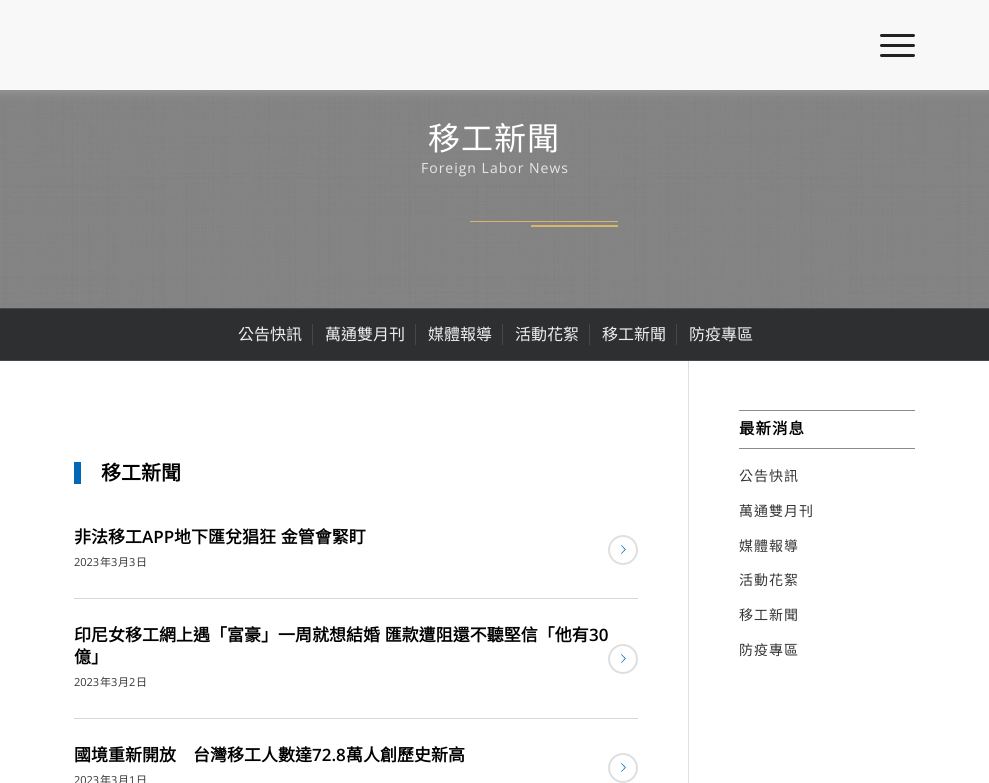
#include <cairo.h>
#include <math.h>
#include <stddef.h>

typedef struct { double x, y; const char *s; } line_t;
typedef struct { double x, y, w, h; unsigned color; } box_t;

static void ink(cairo_t *ctx, unsigned color) {
    cairo_set_source_rgb(ctx, (color >> 16) / 255.0, (color >> 8 & 255) / 255.0, (color & 255) / 255.0);
}

static void write_spaced(cairo_t *ctx, double x, double y, const char *s, double letter, double word) {
    cairo_move_to(ctx, x, y);
    while (*s) {
        char ch[5] = {0};
        int n = 0;
        do ch[n++] = *s++; while ((*s & 0xC0) == 0x80);
        cairo_show_text(ctx, ch);
        cairo_rel_move_to(ctx, letter + word * (*ch == ' '), 0);
    }
}

static void round_path(cairo_t *ctx, double x, double y, double w, double h, double r) {
    cairo_new_sub_path(ctx);
    cairo_arc(ctx, x + w - r, y + h - r, r, 0, M_PI / 2);
    cairo_arc(ctx, x + r, y + h - r, r, M_PI / 2, M_PI);
    cairo_arc(ctx, x + r, y + r, r, M_PI, 1.5 * M_PI);
    cairo_arc(ctx, x + w - r, y + r, r, 1.5 * M_PI, 2 * M_PI);
    cairo_close_path(ctx);
}

static void blur_box(cairo_t *ctx, double x, double y, double w, double h, double r, double blur, double alpha) {
    cairo_push_group_with_content(ctx, CAIRO_CONTENT_ALPHA);
    cairo_set_operator(ctx, CAIRO_OPERATOR_SOURCE);
    for (int i = 15; i >= -15 && fmin(w, h) + blur * i / 3 > 0; i -= 2) {
        double e = blur * i / 6;
        cairo_set_source_rgba(ctx, 0, 0, 0, alpha * erfc((i - 1) / 8.5) / 2);
        round_path(ctx, x - e, y - e, w + 2 * e, h + 2 * e, fmax(0, fmin(r + e + blur * .6, fmin(w, h) / 2 + e)));
        cairo_fill(ctx);
    }
    cairo_pattern_t *soft = cairo_pop_group(ctx);
    cairo_mask(ctx, soft);
    cairo_pattern_destroy(soft);
}

static void paste(cairo_t *ctx, const char *path, double x, double y, double w, double h) {
    cairo_surface_t *image = cairo_image_surface_create_from_png(path);
    cairo_save(ctx);
    cairo_set_source_surface(ctx, image, x, y);
    cairo_rectangle(ctx, x, y, w, h);
    cairo_fill(ctx);
    cairo_restore(ctx);
    cairo_surface_destroy(image);
}

int main(void) {
    cairo_surface_t *surface = cairo_image_surface_create(CAIRO_FORMAT_RGB24, 989, 783);
    cairo_t *ctx = cairo_create(surface);
    cairo_font_options_t *options = cairo_font_options_create();
    cairo_font_options_set_hint_metrics(options, CAIRO_HINT_METRICS_OFF);
    cairo_font_options_set_hint_style(options, CAIRO_HINT_STYLE_NONE);
    cairo_set_font_options(ctx, options);
    cairo_set_miter_limit(ctx, 4);
    ink(ctx, 0xFFFFFF);
    cairo_paint(ctx);
    ink(ctx, 0x808080);
    cairo_rectangle(ctx, 0, 90, 989, 218);
    cairo_fill(ctx);
    paste(ctx, "media/1.png", 0, 90, 989, 218);
    ink(ctx, 0x999999);
    blur_box(ctx, 0, 2, 989, 90, 0, 5, 1);
    ink(ctx, 0xF8F8F8);
    cairo_rectangle(ctx, 0, 0, 989, 90);
    cairo_fill(ctx);
    ink(ctx, 0x222222);
    round_path(ctx, 880, 44, 35, 3, 1.5);
    cairo_fill(ctx);
    round_path(ctx, 880, 34, 35, 3, 1.5);
    cairo_fill(ctx);
    round_path(ctx, 880, 54, 35, 3, 1.5);
    cairo_fill(ctx);
    cairo_select_font_face(ctx, "Noto Sans CJK TC", CAIRO_FONT_SLANT_NORMAL, CAIRO_FONT_WEIGHT_NORMAL);
    cairo_set_font_size(ctx, 32);
    ink(ctx, 0xFFFFFF);
    write_spaced(ctx, 428, 150, "移工新聞", 1, 0);
    cairo_select_font_face(ctx, "Open Sans", CAIRO_FONT_SLANT_NORMAL, CAIRO_FONT_WEIGHT_NORMAL);
    cairo_set_font_size(ctx, 14);
    ink(ctx, 0xE6E6E6);
    write_spaced(ctx, 421, 173, "Foreign Labor News", 1, 0);
    {
        static const box_t items[] = {
            {470, 221, 148, 1, 0xDAB766},
            {531, 225, 87, 2, 0xDAB766},
            {0, 309, 989, 51, 0x2D2F31},
            {0, 308, 989, 1, 0x46494C},
            {688, 360, 1, 423, 0xDFDFE0},
            {0, 360, 989, 1, 0x46494C},
        };
        for (size_t i = 0; i < sizeof items / sizeof *items; i++) {
            ink(ctx, items[i].color);
            cairo_rectangle(ctx, items[i].x, items[i].y, items[i].w, items[i].h);
            cairo_fill(ctx);
        }
    }
    cairo_select_font_face(ctx, "Noto Sans CJK TC", CAIRO_FONT_SLANT_NORMAL, CAIRO_FONT_WEIGHT_NORMAL);
    cairo_set_font_size(ctx, 16);
    ink(ctx, 0xEEEEEE);
    cairo_move_to(ctx, 238, 340);
    cairo_show_text(ctx, "公告快訊");
    ink(ctx, 0x46494C);
    cairo_rectangle(ctx, 312, 324, 1, 21);
    cairo_fill(ctx);
    ink(ctx, 0xEEEEEE);
    cairo_move_to(ctx, 325, 340);
    cairo_show_text(ctx, "萬通雙月刊");
    ink(ctx, 0x46494C);
    cairo_rectangle(ctx, 415, 324, 1, 21);
    cairo_fill(ctx);
    ink(ctx, 0xEEEEEE);
    cairo_move_to(ctx, 428, 340);
    cairo_show_text(ctx, "媒體報導");
    ink(ctx, 0x46494C);
    cairo_rectangle(ctx, 502, 324, 1, 21);
    cairo_fill(ctx);
    ink(ctx, 0xEEEEEE);
    cairo_move_to(ctx, 515, 340);
    cairo_show_text(ctx, "活動花絮");
    ink(ctx, 0x46494C);
    cairo_rectangle(ctx, 589, 324, 1, 21);
    cairo_fill(ctx);
    ink(ctx, 0xEEEEEE);
    cairo_move_to(ctx, 602, 340);
    cairo_show_text(ctx, "移工新聞");
    ink(ctx, 0x46494C);
    cairo_rectangle(ctx, 676, 324, 1, 21);
    cairo_fill(ctx);
    ink(ctx, 0xEEEEEE);
    cairo_move_to(ctx, 689, 340);
    cairo_show_text(ctx, "防疫專區");
    ink(ctx, 0x0068B7);
    cairo_rectangle(ctx, 74, 462, 7, 22);
    cairo_fill(ctx);
    cairo_select_font_face(ctx, "Noto Sans CJK TC", CAIRO_FONT_SLANT_NORMAL, CAIRO_FONT_WEIGHT_BOLD);
    cairo_set_font_size(ctx, 20);
    ink(ctx, 0x000000);
    cairo_move_to(ctx, 101, 480);
    cairo_show_text(ctx, "移工新聞");
    cairo_set_font_size(ctx, 17);
    cairo_move_to(ctx, 74, 543);
    cairo_show_text(ctx, "非法移工");
    cairo_select_font_face(ctx, "Open Sans SemiBold", CAIRO_FONT_SLANT_NORMAL, CAIRO_FONT_WEIGHT_NORMAL);
    cairo_move_to(ctx, 142, 543);
    cairo_show_text(ctx, "APP");
    cairo_select_font_face(ctx, "Noto Sans CJK TC", CAIRO_FONT_SLANT_NORMAL, CAIRO_FONT_WEIGHT_BOLD);
    write_spaced(ctx, 174, 543, "地下匯兌猖狂 金管會緊盯", 0, 1);
    cairo_select_font_face(ctx, "Open Sans", CAIRO_FONT_SLANT_NORMAL, CAIRO_FONT_WEIGHT_NORMAL);
    cairo_set_font_size(ctx, 11);
    ink(ctx, 0x363636);
    cairo_move_to(ctx, 74, 566);
    cairo_show_text(ctx, "2023");
    cairo_select_font_face(ctx, "Noto Sans CJK TC", CAIRO_FONT_SLANT_NORMAL, CAIRO_FONT_WEIGHT_NORMAL);
    cairo_move_to(ctx, 100, 566);
    cairo_show_text(ctx, "年");
    cairo_select_font_face(ctx, "Open Sans", CAIRO_FONT_SLANT_NORMAL, CAIRO_FONT_WEIGHT_NORMAL);
    cairo_move_to(ctx, 111, 566);
    cairo_show_text(ctx, "3");
    cairo_select_font_face(ctx, "Noto Sans CJK TC", CAIRO_FONT_SLANT_NORMAL, CAIRO_FONT_WEIGHT_NORMAL);
    cairo_move_to(ctx, 118, 566);
    cairo_show_text(ctx, "月");
    cairo_select_font_face(ctx, "Open Sans", CAIRO_FONT_SLANT_NORMAL, CAIRO_FONT_WEIGHT_NORMAL);
    cairo_move_to(ctx, 129, 566);
    cairo_show_text(ctx, "3");
    cairo_select_font_face(ctx, "Noto Sans CJK TC", CAIRO_FONT_SLANT_NORMAL, CAIRO_FONT_WEIGHT_NORMAL);
    cairo_move_to(ctx, 136, 566);
    cairo_show_text(ctx, "日");
    cairo_new_path(ctx);
    cairo_arc(ctx, 623, 550, 14, 0, 2 * M_PI);
    ink(ctx, 0xDFDFE0);
    cairo_stroke(ctx);
    paste(ctx, "media/2.png", 621, 545, 5, 9);
    ink(ctx, 0xD9D9D9);
    cairo_rectangle(ctx, 74, 598, 564, 1);
    cairo_fill(ctx);
    cairo_select_font_face(ctx, "Noto Sans CJK TC", CAIRO_FONT_SLANT_NORMAL, CAIRO_FONT_WEIGHT_BOLD);
    cairo_set_font_size(ctx, 17);
    ink(ctx, 0x000000);
    write_spaced(ctx, 74, 641, "印尼女移工網上遇「富豪」一周就想結婚 匯款遭阻還不聽堅信「他有", 0, 1);
    cairo_select_font_face(ctx, "Open Sans SemiBold", CAIRO_FONT_SLANT_NORMAL, CAIRO_FONT_WEIGHT_NORMAL);
    cairo_move_to(ctx, 589, 641);
    cairo_show_text(ctx, "30");
    cairo_select_font_face(ctx, "Noto Sans CJK TC", CAIRO_FONT_SLANT_NORMAL, CAIRO_FONT_WEIGHT_BOLD);
    cairo_move_to(ctx, 74, 663);
    cairo_show_text(ctx, "億」");
    cairo_new_path(ctx);
    cairo_arc(ctx, 623, 659, 14, 0, 2 * M_PI);
    ink(ctx, 0xDFDFE0);
    cairo_stroke(ctx);
    paste(ctx, "media/2.png", 621, 654, 5, 9);
    cairo_select_font_face(ctx, "Open Sans", CAIRO_FONT_SLANT_NORMAL, CAIRO_FONT_WEIGHT_NORMAL);
    cairo_set_font_size(ctx, 11);
    ink(ctx, 0x363636);
    cairo_move_to(ctx, 74, 686);
    cairo_show_text(ctx, "2023");
    cairo_select_font_face(ctx, "Noto Sans CJK TC", CAIRO_FONT_SLANT_NORMAL, CAIRO_FONT_WEIGHT_NORMAL);
    cairo_move_to(ctx, 100, 686);
    cairo_show_text(ctx, "年");
    cairo_select_font_face(ctx, "Open Sans", CAIRO_FONT_SLANT_NORMAL, CAIRO_FONT_WEIGHT_NORMAL);
    cairo_move_to(ctx, 111, 686);
    cairo_show_text(ctx, "3");
    cairo_select_font_face(ctx, "Noto Sans CJK TC", CAIRO_FONT_SLANT_NORMAL, CAIRO_FONT_WEIGHT_NORMAL);
    cairo_move_to(ctx, 118, 686);
    cairo_show_text(ctx, "月");
    cairo_select_font_face(ctx, "Open Sans", CAIRO_FONT_SLANT_NORMAL, CAIRO_FONT_WEIGHT_NORMAL);
    cairo_move_to(ctx, 129, 686);
    cairo_show_text(ctx, "2");
    cairo_select_font_face(ctx, "Noto Sans CJK TC", CAIRO_FONT_SLANT_NORMAL, CAIRO_FONT_WEIGHT_NORMAL);
    cairo_move_to(ctx, 136, 686);
    cairo_show_text(ctx, "日");
    ink(ctx, 0xD9D9D9);
    cairo_rectangle(ctx, 74, 718, 564, 1);
    cairo_fill(ctx);
    cairo_select_font_face(ctx, "Noto Sans CJK TC", CAIRO_FONT_SLANT_NORMAL, CAIRO_FONT_WEIGHT_BOLD);
    cairo_set_font_size(ctx, 17);
    ink(ctx, 0x000000);
    cairo_move_to(ctx, 74, 761);
    cairo_show_text(ctx, "國境重新開放　台灣移工人數達");
    cairo_select_font_face(ctx, "Open Sans SemiBold", CAIRO_FONT_SLANT_NORMAL, CAIRO_FONT_WEIGHT_NORMAL);
    cairo_move_to(ctx, 312, 761);
    cairo_show_text(ctx, "72.8");
    cairo_select_font_face(ctx, "Noto Sans CJK TC", CAIRO_FONT_SLANT_NORMAL, CAIRO_FONT_WEIGHT_BOLD);
    cairo_move_to(ctx, 346, 761);
    cairo_show_text(ctx, "萬人創歷史新高");
    cairo_select_font_face(ctx, "Open Sans", CAIRO_FONT_SLANT_NORMAL, CAIRO_FONT_WEIGHT_NORMAL);
    cairo_set_font_size(ctx, 11);
    ink(ctx, 0x363636);
    cairo_move_to(ctx, 74, 784);
    cairo_show_text(ctx, "2023");
    cairo_select_font_face(ctx, "Noto Sans CJK TC", CAIRO_FONT_SLANT_NORMAL, CAIRO_FONT_WEIGHT_NORMAL);
    cairo_move_to(ctx, 100, 784);
    cairo_show_text(ctx, "年");
    cairo_select_font_face(ctx, "Open Sans", CAIRO_FONT_SLANT_NORMAL, CAIRO_FONT_WEIGHT_NORMAL);
    cairo_move_to(ctx, 111, 784);
    cairo_show_text(ctx, "3");
    cairo_select_font_face(ctx, "Noto Sans CJK TC", CAIRO_FONT_SLANT_NORMAL, CAIRO_FONT_WEIGHT_NORMAL);
    cairo_move_to(ctx, 118, 784);
    cairo_show_text(ctx, "月");
    cairo_select_font_face(ctx, "Open Sans", CAIRO_FONT_SLANT_NORMAL, CAIRO_FONT_WEIGHT_NORMAL);
    cairo_move_to(ctx, 129, 784);
    cairo_show_text(ctx, "1");
    cairo_select_font_face(ctx, "Noto Sans CJK TC", CAIRO_FONT_SLANT_NORMAL, CAIRO_FONT_WEIGHT_NORMAL);
    cairo_move_to(ctx, 136, 784);
    cairo_show_text(ctx, "日");
    cairo_new_path(ctx);
    cairo_arc(ctx, 623, 768, 14, 0, 2 * M_PI);
    ink(ctx, 0xDFDFE0);
    cairo_stroke(ctx);
    paste(ctx, "media/2.png", 621, 763, 5, 9);
    ink(ctx, 0x898B8D);
    cairo_rectangle(ctx, 739, 410, 176, 1);
    cairo_fill(ctx);
    cairo_rectangle(ctx, 739, 448, 176, 1);
    cairo_fill(ctx);
    cairo_select_font_face(ctx, "Noto Sans CJK TC", CAIRO_FONT_SLANT_NORMAL, CAIRO_FONT_WEIGHT_BOLD);
    cairo_set_font_size(ctx, 15.5);
    ink(ctx, 0x000000);
    write_spaced(ctx, 739, 434, "最新消息", 1, 0);
    cairo_select_font_face(ctx, "Noto Sans CJK TC", CAIRO_FONT_SLANT_NORMAL, CAIRO_FONT_WEIGHT_NORMAL);
    cairo_set_font_size(ctx, 14);
    ink(ctx, 0x363636);
    {
        static const line_t items[] = {
            {739, 481, "公告快訊"},
            {739, 516, "萬通雙月刊"},
            {739, 551, "媒體報導"},
            {739, 585, "活動花絮"},
            {739, 620, "移工新聞"},
            {739, 655, "防疫專區"},
        };
        for (size_t i = 0; i < sizeof items / sizeof *items; i++) {
            write_spaced(ctx, items[i].x, items[i].y, items[i].s, 1, 0);
        }
    }
    cairo_surface_write_to_png(surface, "image.png");
    cairo_font_options_destroy(options);
    cairo_destroy(ctx);
    cairo_surface_destroy(surface);
    return 0;
}
